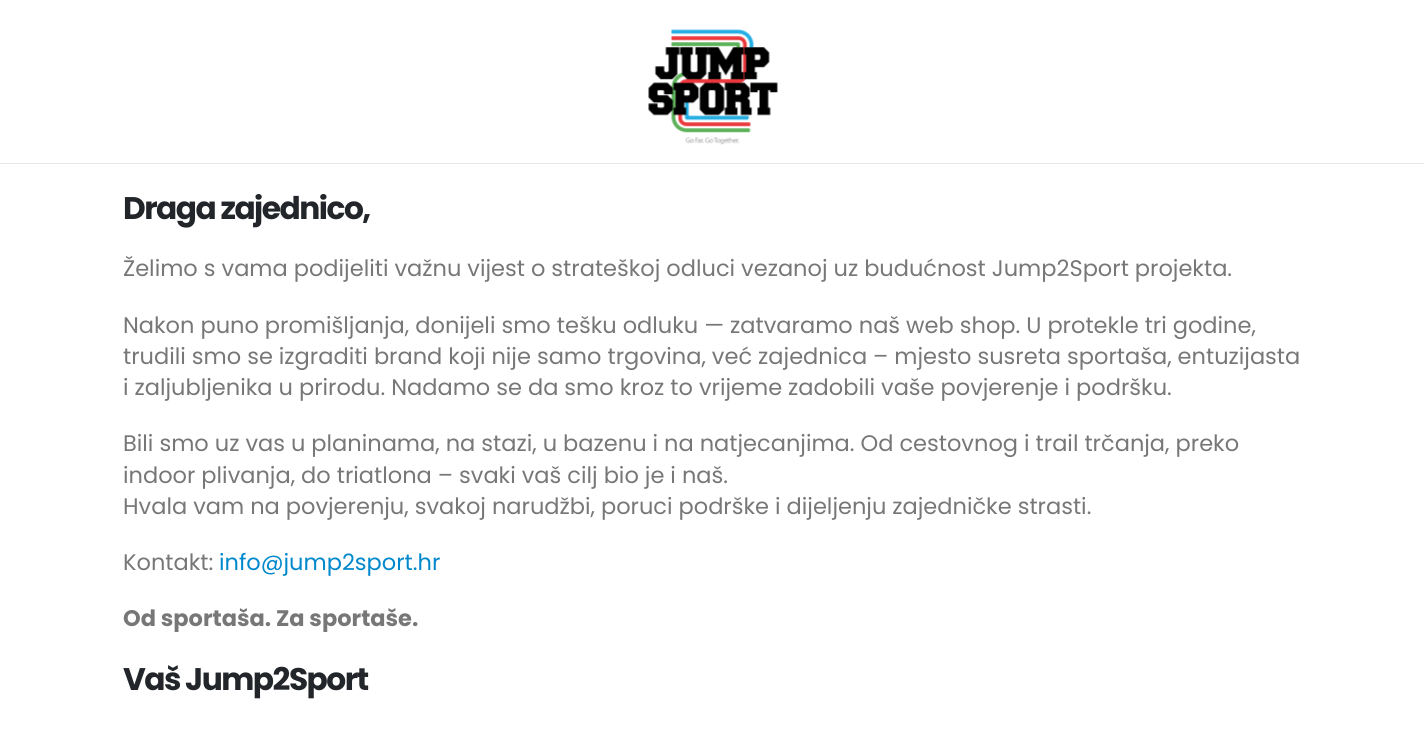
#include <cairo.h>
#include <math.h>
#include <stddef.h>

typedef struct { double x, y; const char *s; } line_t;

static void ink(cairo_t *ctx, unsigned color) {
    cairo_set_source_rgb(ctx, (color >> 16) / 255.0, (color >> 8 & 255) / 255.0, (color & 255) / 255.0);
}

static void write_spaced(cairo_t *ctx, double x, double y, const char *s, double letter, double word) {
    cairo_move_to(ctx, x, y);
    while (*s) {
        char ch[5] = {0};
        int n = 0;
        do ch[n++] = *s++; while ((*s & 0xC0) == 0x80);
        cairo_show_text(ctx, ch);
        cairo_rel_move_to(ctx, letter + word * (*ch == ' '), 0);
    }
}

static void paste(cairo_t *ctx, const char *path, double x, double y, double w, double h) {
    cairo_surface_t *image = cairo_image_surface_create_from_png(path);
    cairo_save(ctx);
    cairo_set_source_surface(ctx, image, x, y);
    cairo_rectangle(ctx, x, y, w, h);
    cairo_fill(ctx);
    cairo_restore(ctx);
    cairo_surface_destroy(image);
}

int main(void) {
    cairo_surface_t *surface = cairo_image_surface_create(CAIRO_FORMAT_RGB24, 1424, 743);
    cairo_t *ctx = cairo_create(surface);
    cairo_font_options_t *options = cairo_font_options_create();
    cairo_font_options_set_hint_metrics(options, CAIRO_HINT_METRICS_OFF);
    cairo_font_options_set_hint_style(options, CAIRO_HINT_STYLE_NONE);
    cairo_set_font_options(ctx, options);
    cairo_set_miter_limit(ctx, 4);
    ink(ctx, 0xFFFFFF);
    cairo_paint(ctx);
    ink(ctx, 0xE7E7E7);
    cairo_rectangle(ctx, 0, 163, 1424, 1);
    cairo_fill(ctx);
    paste(ctx, "media/1.png", 648, 29, 130, 116);
    cairo_select_font_face(ctx, "Poppins", CAIRO_FONT_SLANT_NORMAL, CAIRO_FONT_WEIGHT_BOLD);
    cairo_set_font_size(ctx, 31.25);
    ink(ctx, 0x222529);
    write_spaced(ctx, 123, 219, "Draga zajednico,", -1.5, 0);
    cairo_select_font_face(ctx, "Poppins", CAIRO_FONT_SLANT_NORMAL, CAIRO_FONT_WEIGHT_NORMAL);
    cairo_set_font_size(ctx, 22.5);
    ink(ctx, 0x777777);
    {
        static const line_t items[] = {
            {123, 276, "Želimo s vama podijeliti važnu vijest o strateškoj odluci vezanoj uz budućnost Jump2Sport projekta."},
            {123, 333, "Nakon puno promišljanja, donijeli smo tešku odluku — zatvaramo naš web shop. U protekle tri godine,"},
            {123, 364, "trudili smo se izgraditi brand koji nije samo trgovina, već zajednica – mjesto susreta sportaša, entuzijasta"},
            {123, 395, "i zaljubljenika u prirodu. Nadamo se da smo kroz to vrijeme zadobili vaše povjerenje i podršku."},
            {123, 451, "Bili smo uz vas u planinama, na stazi, u bazenu i na natjecanjima. Od cestovnog i trail trčanja, preko"},
            {123, 483, "indoor plivanja, do triatlona – svaki vaš cilj bio je i naš."},
            {123, 514, "Hvala vam na povjerenju, svakoj narudžbi, poruci podrške i dijeljenju zajedničke strasti."},
            {123, 570, "Kontakt:"},
        };
        for (size_t i = 0; i < sizeof items / sizeof *items; i++) {
            cairo_move_to(ctx, items[i].x, items[i].y);
            cairo_show_text(ctx, items[i].s);
        }
    }
    ink(ctx, 0x0088CC);
    cairo_move_to(ctx, 219, 570);
    cairo_show_text(ctx, "info@jump2sport.hr");
    cairo_select_font_face(ctx, "Poppins", CAIRO_FONT_SLANT_NORMAL, CAIRO_FONT_WEIGHT_BOLD);
    ink(ctx, 0x777777);
    cairo_move_to(ctx, 123, 626);
    cairo_show_text(ctx, "Od sportaša. Za sportaše.");
    cairo_set_font_size(ctx, 31.25);
    ink(ctx, 0x222529);
    write_spaced(ctx, 123, 690, "Vaš Jump2Sport", -1.5, 0);
    cairo_surface_write_to_png(surface, "image.png");
    cairo_font_options_destroy(options);
    cairo_destroy(ctx);
    cairo_surface_destroy(surface);
    return 0;
}
